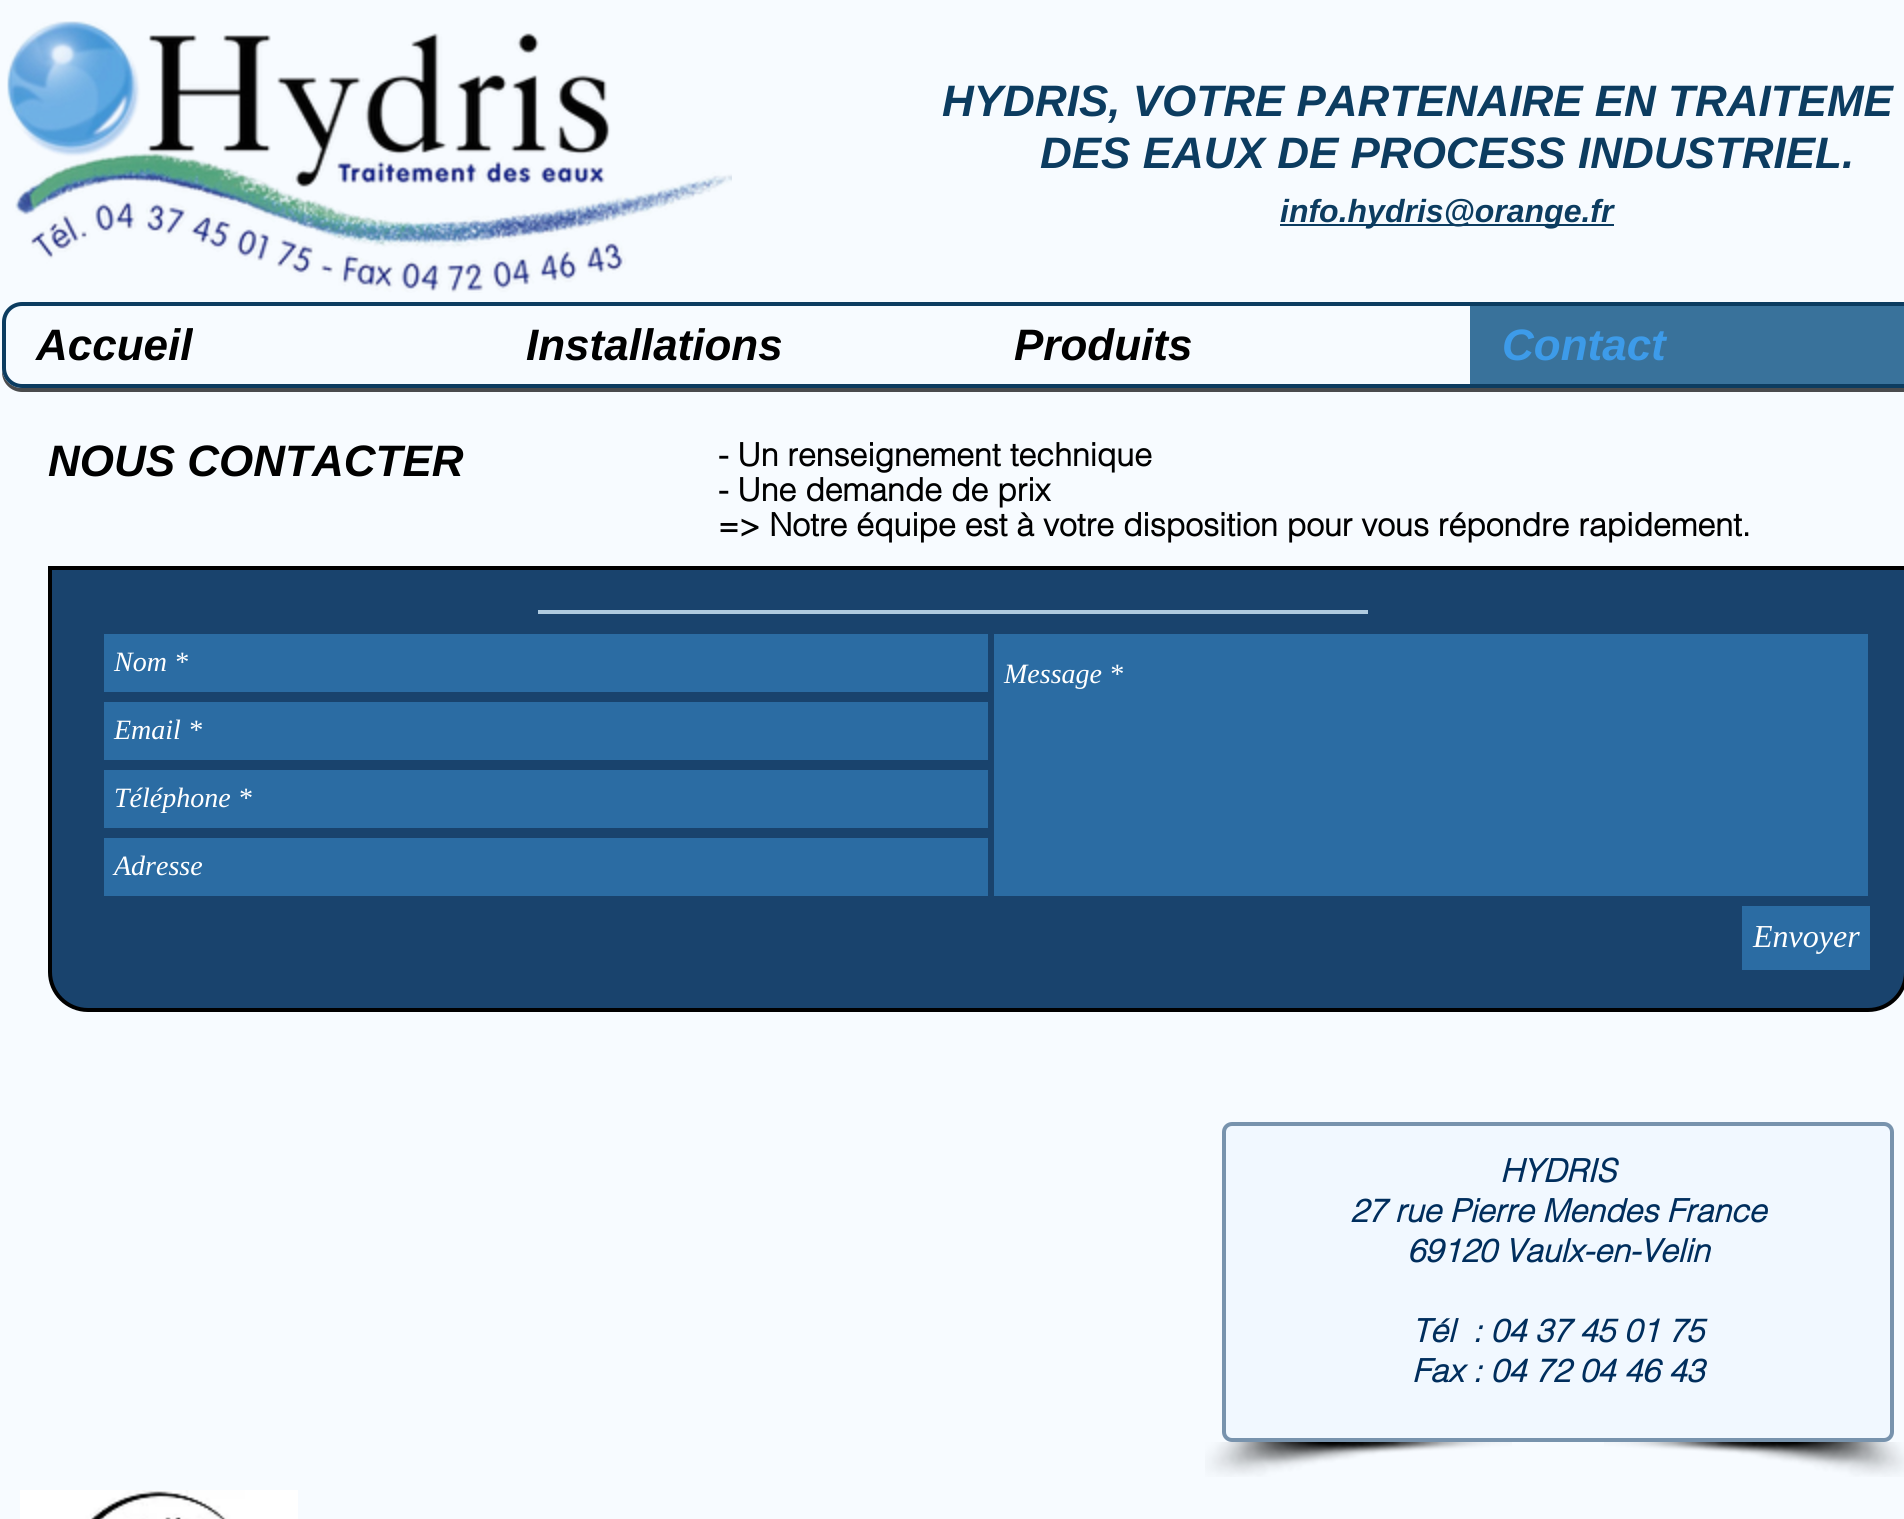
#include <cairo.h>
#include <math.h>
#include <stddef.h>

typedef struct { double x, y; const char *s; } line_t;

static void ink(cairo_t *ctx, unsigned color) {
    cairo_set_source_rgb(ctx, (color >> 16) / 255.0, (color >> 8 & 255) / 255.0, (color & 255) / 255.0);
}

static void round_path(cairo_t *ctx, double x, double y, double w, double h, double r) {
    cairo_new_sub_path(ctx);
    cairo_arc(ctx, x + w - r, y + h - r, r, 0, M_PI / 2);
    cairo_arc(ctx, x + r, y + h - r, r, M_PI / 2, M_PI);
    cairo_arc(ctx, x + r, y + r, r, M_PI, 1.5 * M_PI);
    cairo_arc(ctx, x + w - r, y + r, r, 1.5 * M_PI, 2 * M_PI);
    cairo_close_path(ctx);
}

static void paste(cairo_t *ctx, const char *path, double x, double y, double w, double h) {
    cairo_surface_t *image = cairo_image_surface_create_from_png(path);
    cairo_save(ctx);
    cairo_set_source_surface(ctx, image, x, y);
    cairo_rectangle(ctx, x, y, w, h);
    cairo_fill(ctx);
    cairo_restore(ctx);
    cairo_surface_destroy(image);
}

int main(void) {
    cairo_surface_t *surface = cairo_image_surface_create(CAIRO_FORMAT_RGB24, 1904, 1519);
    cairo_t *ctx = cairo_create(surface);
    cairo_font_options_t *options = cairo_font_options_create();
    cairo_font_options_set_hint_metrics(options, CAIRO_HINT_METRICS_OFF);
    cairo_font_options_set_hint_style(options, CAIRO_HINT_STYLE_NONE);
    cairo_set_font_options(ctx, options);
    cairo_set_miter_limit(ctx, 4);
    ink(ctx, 0xF7FBFF);
    cairo_paint(ctx);
    paste(ctx, "media/1.png", 7, 21, 725, 272);
    cairo_select_font_face(ctx, "Liberation Sans", CAIRO_FONT_SLANT_ITALIC, CAIRO_FONT_WEIGHT_BOLD);
    cairo_set_font_size(ctx, 44);
    ink(ctx, 0x0C3C60);
    cairo_move_to(ctx, 942, 116);
    cairo_show_text(ctx, "HYDRIS, VOTRE PARTENAIRE EN TRAITEME");
    cairo_move_to(ctx, 1040, 168);
    cairo_show_text(ctx, "DES EAUX DE PROCESS INDUSTRIEL.");
    cairo_rectangle(ctx, 1280, 224, 334, 2);
    cairo_fill(ctx);
    cairo_set_font_size(ctx, 32);
    cairo_move_to(ctx, 1280, 222);
    cairo_show_text(ctx, "info.hydris@orange.fr");
    ink(ctx, 0x4A4B4D);
    cairo_new_path(ctx);
    cairo_move_to(ctx, 2, 368);
    cairo_line_to(ctx, 2, 372);
    cairo_curve_to(ctx, 2, 383, 11, 392, 22, 392);
    cairo_line_to(ctx, 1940, 392);
    cairo_curve_to(ctx, 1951, 392, 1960, 383, 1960, 372);
    cairo_line_to(ctx, 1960, 368);
    cairo_curve_to(ctx, 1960, 379, 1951, 388, 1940, 388);
    cairo_line_to(ctx, 22, 388);
    cairo_curve_to(ctx, 11, 388, 2, 379, 2, 368);
    cairo_close_path(ctx);
    cairo_fill(ctx);
    round_path(ctx, 4, 304, 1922, 82, 18);
    ink(ctx, 0x0C3C60);
    cairo_set_line_width(ctx, 4);
    cairo_stroke(ctx);
    cairo_set_font_size(ctx, 44);
    ink(ctx, 0x000000);
    {
        static const line_t items[] = {
            {36, 360, "Accueil"},
            {526, 360, "Installations"},
            {1014, 360, "Produits"},
        };
        for (size_t i = 0; i < sizeof items / sizeof *items; i++) {
            cairo_move_to(ctx, items[i].x, items[i].y);
            cairo_show_text(ctx, items[i].s);
        }
    }
    ink(ctx, 0x39729B);
    cairo_rectangle(ctx, 1470, 306, 434, 78);
    cairo_fill(ctx);
    ink(ctx, 0x3D9BE9);
    cairo_move_to(ctx, 1502, 360);
    cairo_show_text(ctx, "Contact");
    ink(ctx, 0x000000);
    cairo_move_to(ctx, 48, 476);
    cairo_show_text(ctx, "NOUS CONTACTER");
    cairo_select_font_face(ctx, "helvetica", CAIRO_FONT_SLANT_NORMAL, CAIRO_FONT_WEIGHT_BOLD);
    cairo_set_font_size(ctx, 32);
    {
        static const line_t items[] = {
            {718, 466, "- Un renseignement technique"},
            {718, 501, "- Une demande de prix"},
            {718, 536, "=> Notre équipe est à votre disposition pour vous répondre rapidement."},
        };
        for (size_t i = 0; i < sizeof items / sizeof *items; i++) {
            cairo_move_to(ctx, items[i].x, items[i].y);
            cairo_show_text(ctx, items[i].s);
        }
    }
    ink(ctx, 0x19436D);
    cairo_new_path(ctx);
    cairo_move_to(ctx, 50, 568);
    cairo_line_to(ctx, 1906, 568);
    cairo_line_to(ctx, 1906, 972);
    cairo_curve_to(ctx, 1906, 993, 1889, 1010, 1868, 1010);
    cairo_line_to(ctx, 88, 1010);
    cairo_curve_to(ctx, 67, 1010, 50, 993, 50, 972);
    cairo_close_path(ctx);
    cairo_fill_preserve(ctx);
    ink(ctx, 0x000000);
    cairo_stroke(ctx);
    ink(ctx, 0xAFCBE0);
    cairo_rectangle(ctx, 538, 610, 830, 4);
    cairo_fill(ctx);
    ink(ctx, 0x2B6CA3);
    cairo_rectangle(ctx, 104, 634, 884, 58);
    cairo_fill(ctx);
    cairo_select_font_face(ctx, "Liberation Serif", CAIRO_FONT_SLANT_ITALIC, CAIRO_FONT_WEIGHT_NORMAL);
    cairo_set_font_size(ctx, 28);
    ink(ctx, 0xFFFFFF);
    cairo_move_to(ctx, 114, 671);
    cairo_show_text(ctx, "Nom *");
    ink(ctx, 0x2B6CA3);
    cairo_rectangle(ctx, 994, 634, 874, 262);
    cairo_fill(ctx);
    ink(ctx, 0xFFFFFF);
    cairo_move_to(ctx, 1004, 683);
    cairo_show_text(ctx, "Message *");
    ink(ctx, 0x2B6CA3);
    cairo_rectangle(ctx, 104, 702, 884, 58);
    cairo_fill(ctx);
    ink(ctx, 0xFFFFFF);
    cairo_move_to(ctx, 114, 739);
    cairo_show_text(ctx, "Email *");
    ink(ctx, 0x2B6CA3);
    cairo_rectangle(ctx, 104, 770, 884, 58);
    cairo_fill(ctx);
    ink(ctx, 0xFFFFFF);
    cairo_move_to(ctx, 114, 807);
    cairo_show_text(ctx, "Téléphone *");
    ink(ctx, 0x2B6CA3);
    cairo_rectangle(ctx, 104, 838, 884, 58);
    cairo_fill(ctx);
    ink(ctx, 0xFFFFFF);
    cairo_move_to(ctx, 114, 875);
    cairo_show_text(ctx, "Adresse");
    ink(ctx, 0x2B6CA3);
    cairo_rectangle(ctx, 1742, 906, 128, 64);
    cairo_fill(ctx);
    cairo_set_font_size(ctx, 32);
    ink(ctx, 0xFFFFFF);
    cairo_move_to(ctx, 1753, 947);
    cairo_show_text(ctx, "Envoyer");
    ink(ctx, 0xF1F8FF);
    round_path(ctx, 1222, 1122, 672, 320, 10);
    cairo_fill(ctx);
    round_path(ctx, 1224, 1124, 668, 316, 8);
    cairo_set_source_rgba(ctx, 0, 0.18, 0.365, 0.5);
    cairo_stroke(ctx);
    cairo_select_font_face(ctx, "helvetica", CAIRO_FONT_SLANT_ITALIC, CAIRO_FONT_WEIGHT_BOLD);
    ink(ctx, 0x002E5D);
    {
        static const line_t items[] = {
            {1500, 1182, "HYDRIS"},
            {1350, 1222, "27 rue Pierre Mendes France"},
            {1407, 1262, "69120 Vaulx-en-Velin"},
            {1412, 1342, "Tél  : 04 37 45 01 75"},
            {1412, 1382, "Fax : 04 72 04 46 43"},
        };
        for (size_t i = 0; i < sizeof items / sizeof *items; i++) {
            cairo_move_to(ctx, items[i].x, items[i].y);
            cairo_show_text(ctx, items[i].s);
        }
    }
    paste(ctx, "media/2.png", 1205, 1442, 307, 35);
    paste(ctx, "media/3.png", 1604, 1442, 300, 35);
    paste(ctx, "media/4.png", 20, 1490, 278, 29);
    cairo_surface_write_to_png(surface, "image.png");
    cairo_font_options_destroy(options);
    cairo_destroy(ctx);
    cairo_surface_destroy(surface);
    return 0;
}
